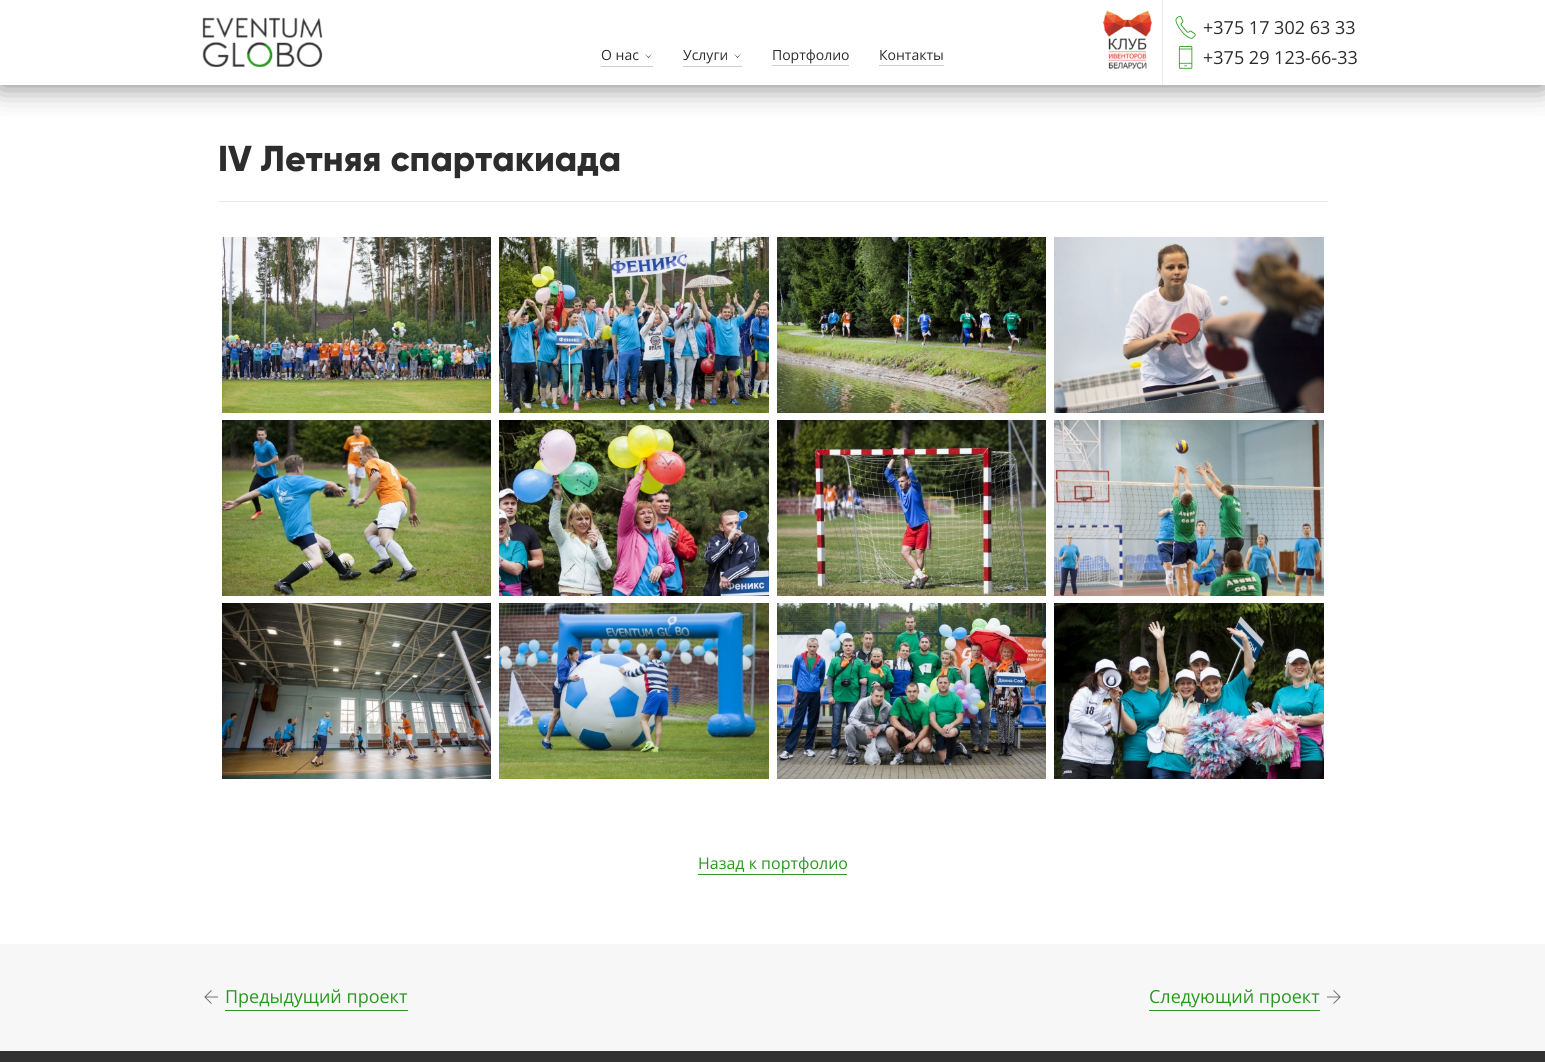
#include <cairo.h>
#include <math.h>
#include <stddef.h>


static void ink(cairo_t *ctx, unsigned color) {
    cairo_set_source_rgb(ctx, (color >> 16) / 255.0, (color >> 8 & 255) / 255.0, (color & 255) / 255.0);
}

static void round_path(cairo_t *ctx, double x, double y, double w, double h, double r) {
    cairo_new_sub_path(ctx);
    cairo_arc(ctx, x + w - r, y + h - r, r, 0, M_PI / 2);
    cairo_arc(ctx, x + r, y + h - r, r, M_PI / 2, M_PI);
    cairo_arc(ctx, x + r, y + r, r, M_PI, 1.5 * M_PI);
    cairo_arc(ctx, x + w - r, y + r, r, 1.5 * M_PI, 2 * M_PI);
    cairo_close_path(ctx);
}

static void blur_box(cairo_t *ctx, double x, double y, double w, double h, double r, double blur, double alpha) {
    cairo_push_group_with_content(ctx, CAIRO_CONTENT_ALPHA);
    cairo_set_operator(ctx, CAIRO_OPERATOR_SOURCE);
    for (int i = 15; i >= -15 && fmin(w, h) + blur * i / 3 > 0; i -= 2) {
        double e = blur * i / 6;
        cairo_set_source_rgba(ctx, 0, 0, 0, alpha * erfc((i - 1) / 8.5) / 2);
        round_path(ctx, x - e, y - e, w + 2 * e, h + 2 * e, fmax(0, fmin(r + e + blur * .6, fmin(w, h) / 2 + e)));
        cairo_fill(ctx);
    }
    cairo_pattern_t *soft = cairo_pop_group(ctx);
    cairo_mask(ctx, soft);
    cairo_pattern_destroy(soft);
}

static void paste(cairo_t *ctx, const char *path, double x, double y, double w, double h) {
    cairo_surface_t *image = cairo_image_surface_create_from_png(path);
    cairo_save(ctx);
    cairo_set_source_surface(ctx, image, x, y);
    cairo_rectangle(ctx, x, y, w, h);
    cairo_fill(ctx);
    cairo_restore(ctx);
    cairo_surface_destroy(image);
}

int main(void) {
    cairo_surface_t *surface = cairo_image_surface_create(CAIRO_FORMAT_RGB24, 1545, 1062);
    cairo_t *ctx = cairo_create(surface);
    cairo_font_options_t *options = cairo_font_options_create();
    cairo_font_options_set_hint_metrics(options, CAIRO_HINT_METRICS_OFF);
    cairo_font_options_set_hint_style(options, CAIRO_HINT_STYLE_NONE);
    cairo_set_font_options(ctx, options);
    cairo_set_miter_limit(ctx, 4);
    ink(ctx, 0xFFFFFF);
    cairo_paint(ctx);
    cairo_save(ctx);
    cairo_rectangle(ctx, 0, 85, 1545, 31);
    cairo_clip(ctx);
    ink(ctx, 0x777777);
    blur_box(ctx, 0, 0, 1545, 85, 0, 15, 1);
    cairo_restore(ctx);
    paste(ctx, "media/1.png", 202, 17, 121, 50);
    ink(ctx, 0xCCCCCC);
    cairo_rectangle(ctx, 601, 66, 52, 1);
    cairo_fill(ctx);
    cairo_select_font_face(ctx, "Open Sans", CAIRO_FONT_SLANT_NORMAL, CAIRO_FONT_WEIGHT_NORMAL);
    cairo_set_font_size(ctx, 14);
    ink(ctx, 0x2D2D2D);
    cairo_move_to(ctx, 601, 60);
    cairo_show_text(ctx, "О нас");
    cairo_new_path(ctx);
    cairo_move_to(ctx, 652.5, 53.5);
    cairo_line_to(ctx, 648.5, 57);
    cairo_line_to(ctx, 644.5, 53.5);
    cairo_line_to(ctx, 648.5, 58);
    cairo_close_path(ctx);
    cairo_fill(ctx);
    ink(ctx, 0xCCCCCC);
    cairo_rectangle(ctx, 683, 66, 59, 1);
    cairo_fill(ctx);
    ink(ctx, 0x2D2D2D);
    cairo_move_to(ctx, 683, 60);
    cairo_show_text(ctx, "Услуги");
    cairo_new_path(ctx);
    cairo_move_to(ctx, 741.5, 53.5);
    cairo_line_to(ctx, 737.5, 57);
    cairo_line_to(ctx, 733.5, 53.5);
    cairo_line_to(ctx, 737.5, 58);
    cairo_close_path(ctx);
    cairo_fill(ctx);
    ink(ctx, 0xCCCCCC);
    cairo_rectangle(ctx, 772, 65, 77, 1);
    cairo_fill(ctx);
    ink(ctx, 0x2D2D2D);
    cairo_move_to(ctx, 772, 60);
    cairo_show_text(ctx, "Портфолио");
    ink(ctx, 0xCCCCCC);
    cairo_rectangle(ctx, 879, 65, 65, 1);
    cairo_fill(ctx);
    ink(ctx, 0x2D2D2D);
    cairo_move_to(ctx, 879, 60);
    cairo_show_text(ctx, "Контакты");
    ink(ctx, 0xEBEBEB);
    cairo_rectangle(ctx, 1162, 0, 1, 85);
    cairo_fill(ctx);
    paste(ctx, "media/2.png", 1102, 10, 50, 59);
    paste(ctx, "media/3.png", 1175, 16, 21, 23);
    cairo_set_font_size(ctx, 18);
    ink(ctx, 0x2D2D2D);
    cairo_move_to(ctx, 1203, 34);
    cairo_show_text(ctx, "+375 17 302 63 33");
    paste(ctx, "media/4.png", 1178, 46, 15, 23);
    cairo_move_to(ctx, 1203, 64);
    cairo_show_text(ctx, "+375 29 123-66-33");
    cairo_select_font_face(ctx, "Gilroy ExtraBold", CAIRO_FONT_SLANT_NORMAL, CAIRO_FONT_WEIGHT_NORMAL);
    cairo_set_font_size(ctx, 36);
    cairo_move_to(ctx, 218, 171);
    cairo_show_text(ctx, "IV Летняя спартакиада");
    ink(ctx, 0xEBEBEB);
    cairo_rectangle(ctx, 218, 201, 1110, 1);
    cairo_fill(ctx);
    paste(ctx, "media/5.png", 222, 237, 269, 176);
    paste(ctx, "media/6.png", 499, 237, 270, 176);
    paste(ctx, "media/7.png", 777, 237, 269, 176);
    paste(ctx, "media/8.png", 1054, 237, 270, 176);
    paste(ctx, "media/9.png", 222, 420, 269, 176);
    paste(ctx, "media/10.png", 499, 420, 270, 176);
    paste(ctx, "media/11.png", 777, 420, 269, 176);
    paste(ctx, "media/12.png", 1054, 420, 270, 176);
    paste(ctx, "media/13.png", 222, 603, 269, 176);
    paste(ctx, "media/14.png", 499, 603, 270, 176);
    paste(ctx, "media/15.png", 777, 603, 269, 176);
    paste(ctx, "media/16.png", 1054, 603, 270, 176);
    cairo_select_font_face(ctx, "Open Sans", CAIRO_FONT_SLANT_NORMAL, CAIRO_FONT_WEIGHT_NORMAL);
    cairo_set_font_size(ctx, 16);
    ink(ctx, 0x28991E);
    cairo_move_to(ctx, 698, 869);
    cairo_show_text(ctx, "Назад к портфолио");
    cairo_rectangle(ctx, 698, 874, 149, 1);
    cairo_fill(ctx);
    ink(ctx, 0xF7F7F7);
    cairo_rectangle(ctx, 0, 944, 1545, 107);
    cairo_fill(ctx);
    paste(ctx, "media/17.png", 204, 990, 14, 14);
    ink(ctx, 0x28991E);
    cairo_rectangle(ctx, 225, 1010, 183, 1);
    cairo_fill(ctx);
    cairo_set_font_size(ctx, 18);
    cairo_move_to(ctx, 225, 1003);
    cairo_show_text(ctx, "Предыдущий проект");
    cairo_rectangle(ctx, 1149, 1010, 171, 1);
    cairo_fill(ctx);
    cairo_move_to(ctx, 1149, 1003);
    cairo_show_text(ctx, "Следующий проект");
    paste(ctx, "media/18.png", 1327, 990, 14, 14);
    ink(ctx, 0x323232);
    cairo_rectangle(ctx, 0, 1051, 1545, 11);
    cairo_fill(ctx);
    cairo_surface_write_to_png(surface, "image.png");
    cairo_font_options_destroy(options);
    cairo_destroy(ctx);
    cairo_surface_destroy(surface);
    return 0;
}
